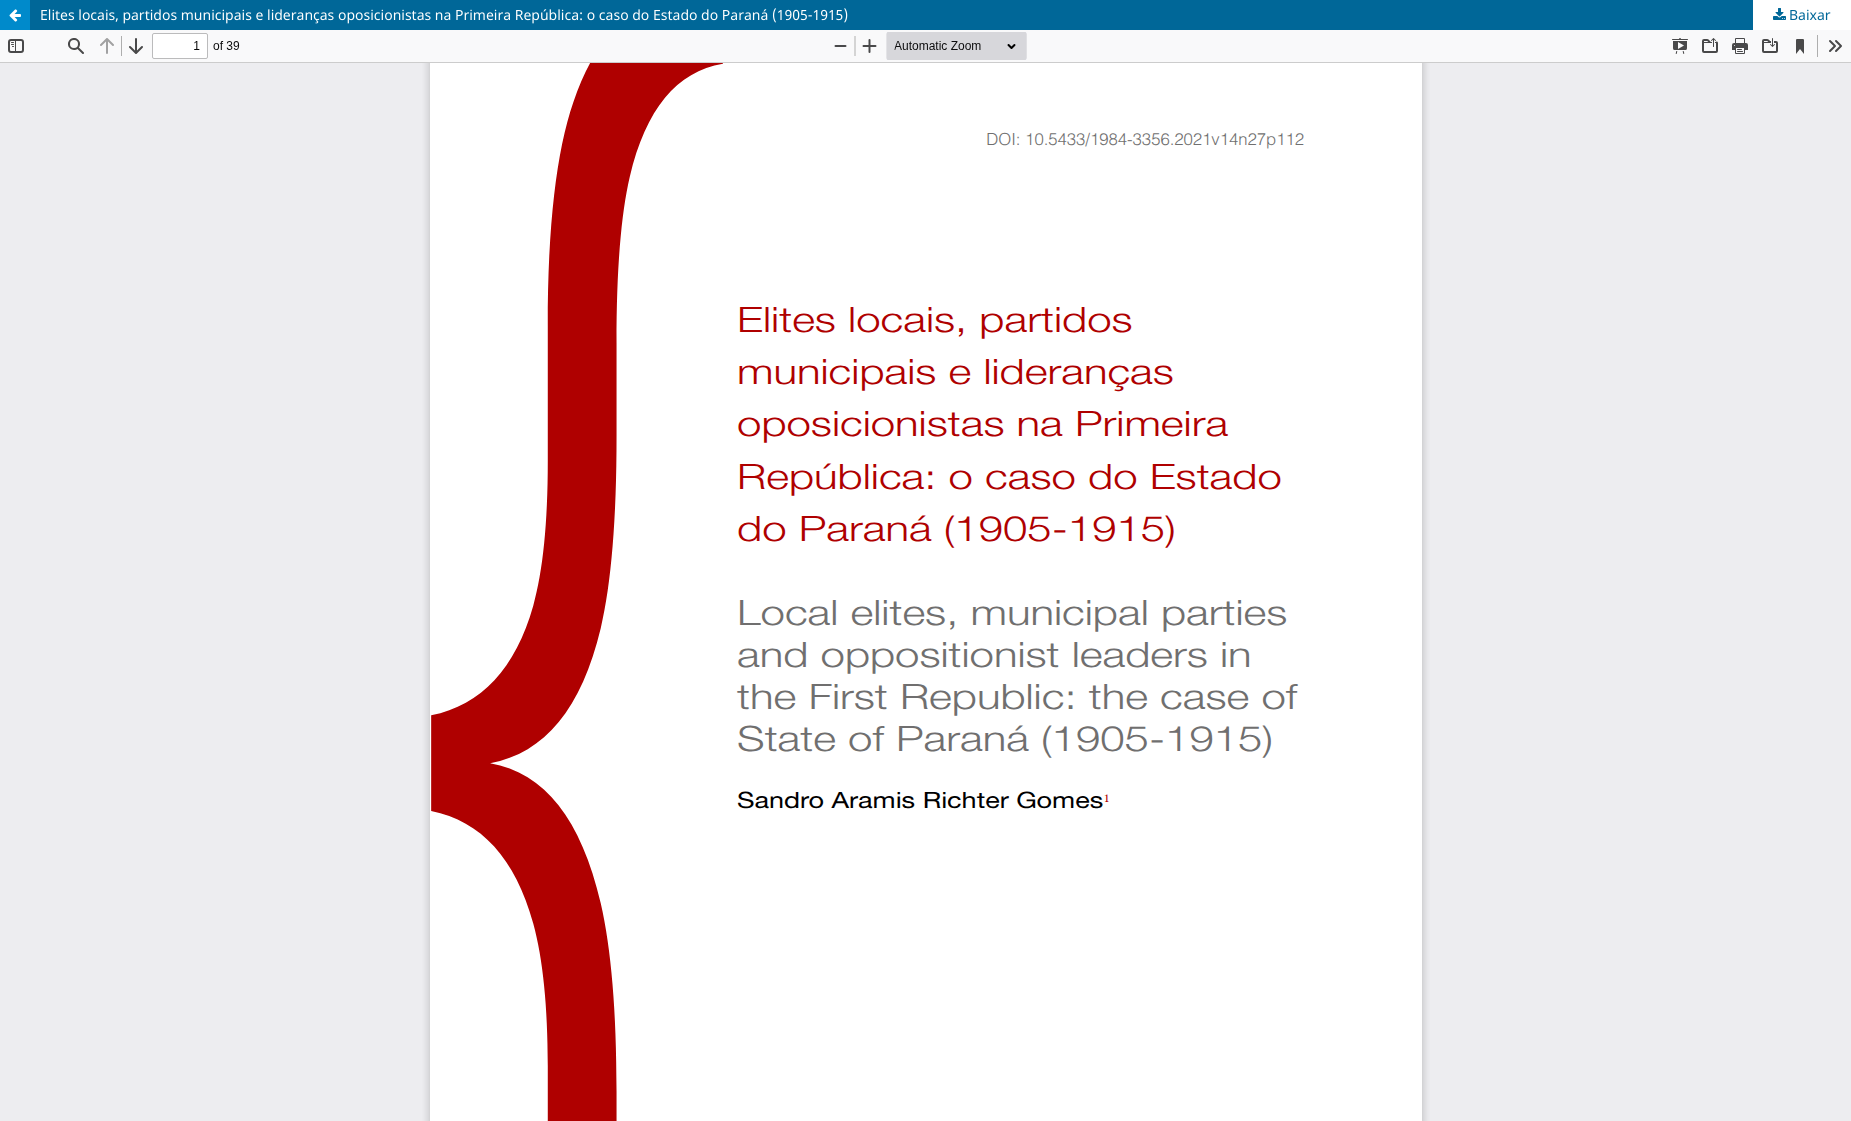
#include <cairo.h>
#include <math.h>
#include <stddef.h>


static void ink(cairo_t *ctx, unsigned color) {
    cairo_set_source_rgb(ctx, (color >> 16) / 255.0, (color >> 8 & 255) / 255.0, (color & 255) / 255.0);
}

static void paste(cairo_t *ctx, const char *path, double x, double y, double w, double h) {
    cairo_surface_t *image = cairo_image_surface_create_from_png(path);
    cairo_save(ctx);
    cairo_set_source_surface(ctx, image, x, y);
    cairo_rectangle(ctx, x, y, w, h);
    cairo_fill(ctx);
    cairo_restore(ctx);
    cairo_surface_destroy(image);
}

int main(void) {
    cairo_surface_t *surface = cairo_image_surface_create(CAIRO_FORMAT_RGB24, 1851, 1121);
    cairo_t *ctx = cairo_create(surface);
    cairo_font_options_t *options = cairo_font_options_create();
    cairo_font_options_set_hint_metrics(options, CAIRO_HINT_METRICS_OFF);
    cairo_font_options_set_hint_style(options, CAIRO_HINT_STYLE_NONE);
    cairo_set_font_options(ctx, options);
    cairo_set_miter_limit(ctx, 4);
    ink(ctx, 0xFFFFFF);
    cairo_paint(ctx);
    ink(ctx, 0x006798);
    cairo_rectangle(ctx, 30, 0, 1723, 30);
    cairo_fill(ctx);
    ink(ctx, 0x008ACB);
    cairo_rectangle(ctx, 0, 0, 30, 30);
    cairo_fill(ctx);
    paste(ctx, "media/1.png", 9, 9, 12, 13);
    cairo_select_font_face(ctx, "Noto Sans", CAIRO_FONT_SLANT_NORMAL, CAIRO_FONT_WEIGHT_NORMAL);
    cairo_set_font_size(ctx, 14);
    ink(ctx, 0xFFFFFF);
    cairo_move_to(ctx, 40, 20);
    cairo_show_text(ctx, "Elites locais, partidos municipais e lideranças oposicionistas na Primeira República: o caso do Estado do Paraná (1905-1915)");
    paste(ctx, "media/2.png", 1773, 8, 13, 12);
    ink(ctx, 0x006798);
    cairo_move_to(ctx, 1789, 20);
    cairo_show_text(ctx, "Baixar");
    paste(ctx, "media/3.png", 0, 30, 1851, 1091);
    cairo_surface_write_to_png(surface, "image.png");
    cairo_font_options_destroy(options);
    cairo_destroy(ctx);
    cairo_surface_destroy(surface);
    return 0;
}
